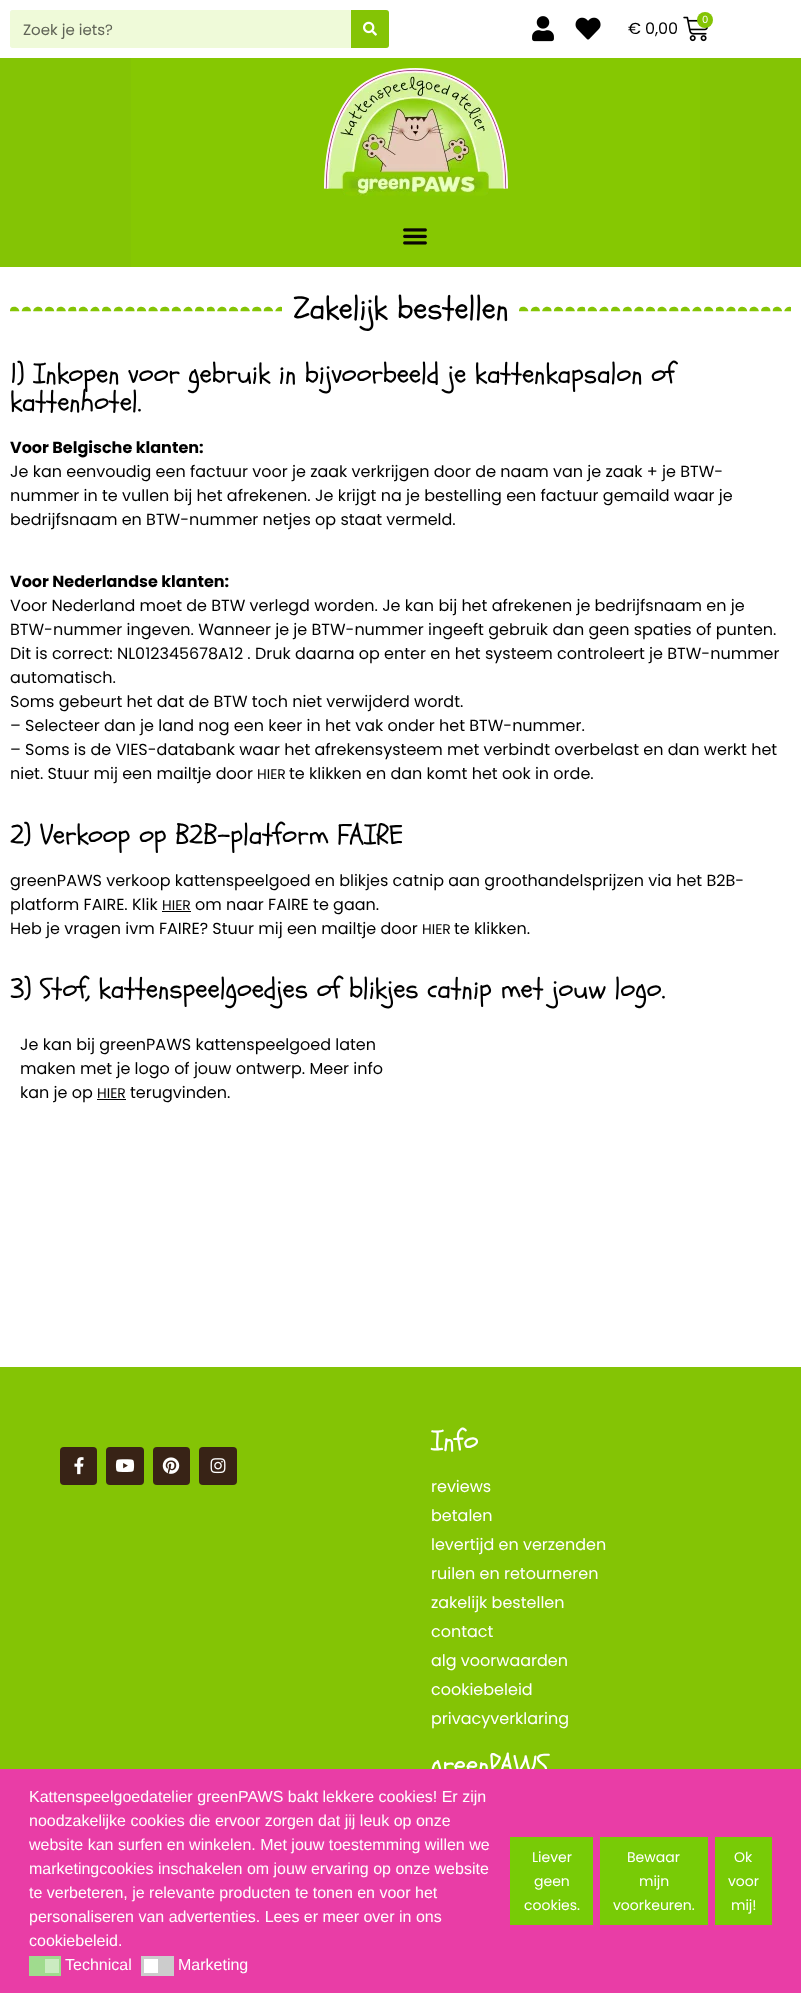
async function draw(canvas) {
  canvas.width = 801;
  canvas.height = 1993;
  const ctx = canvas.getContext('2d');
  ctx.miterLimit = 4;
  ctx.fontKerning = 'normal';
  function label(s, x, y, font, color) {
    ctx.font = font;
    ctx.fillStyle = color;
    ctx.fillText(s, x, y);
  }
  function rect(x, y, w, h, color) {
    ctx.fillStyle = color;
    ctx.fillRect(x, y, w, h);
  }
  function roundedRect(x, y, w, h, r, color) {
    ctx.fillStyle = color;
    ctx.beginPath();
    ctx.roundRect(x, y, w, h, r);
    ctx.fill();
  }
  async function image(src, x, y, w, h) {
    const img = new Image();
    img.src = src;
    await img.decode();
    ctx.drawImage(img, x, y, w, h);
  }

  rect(0, 0, 801, 1993, '#fff');
  roundedRect(10, 10, 379, 38, 3, '#f1f2f3');
  ctx.fillStyle = '#effad9';
  ctx.beginPath();
  ctx.roundRect(10, 10, 341, 38, [3, 2, 2, 3]);
  ctx.fill();
  label('Zoek je iets?', 23, 35, '15px Poppins', '#606457');
  ctx.fillStyle = '#84c405';
  ctx.beginPath();
  ctx.roundRect(351, 10, 38, 38, [0, 3, 3, 0]);
  ctx.fill();
  await image('assets/img1.png', 363, 21, 14, 15);
  await image('assets/img2.png', 532, 16, 22, 26);
  await image('assets/img3.png', 575, 17, 26, 23);
  await image('assets/img4.png', 683, 16, 26, 26);
  ctx.beginPath();
  ctx.arc(705, 20, 8, 0, 2 * Math.PI);
  ctx.fill();
  ctx.letterSpacing = '-0.1px';
  label('0', 702, 23, '10px Poppins', '#fff');
  label('€ 0,00', 628, 34, '16px Poppins', '#000');
  rect(0, 58, 801, 209, '#84c405');
  rect(131, 58, 569, 209, '#86c802');
  await image('assets/img5.png', 324, 68, 184, 128);
  await image('assets/img6.png', 403, 228, 24, 17);
  await image('assets/img7.png', 10, 306, 272, 6);
  label('Zakelijk bestellen', 293, 319, '32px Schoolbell', '#000');
  await image('assets/img7.png', 519, 306, 272, 6);
  label('1) Inkopen voor gebruik in bijvoorbeeld je kattenkapsalon of', 10, 383, '28px Schoolbell', '#000');
  label('kattenhotel.', 10, 411, '28px Schoolbell', '#000');
  ctx.letterSpacing = '0px';
  label('Voor Belgische klanten:', 10, 453, 'bold 16px Poppins', '#000');
  label('Je kan eenvoudig een factuur voor je zaak verkrijgen door de naam van je zaak + je BTW-', 10, 477, '16px Poppins', '#000');
  label('nummer in te vullen bij het afrekenen. Je krijgt na je bestelling een factuur gemaild waar je', 10, 501, '16px Poppins', '#000');
  label('bedrijfsnaam en BTW-nummer netjes op staat vermeld.', 10, 525, '16px Poppins', '#000');
  label('Voor Nederlandse klanten:', 10, 587, 'bold 16px Poppins', '#000');
  label('Voor Nederland moet de BTW verlegd worden. Je kan bij het afrekenen je bedrijfsnaam en je', 10, 611, '16px Poppins', '#000');
  label('BTW-nummer ingeven. Wanneer je je BTW-nummer ingeeft gebruik dan geen spaties of punten.', 10, 635, '16px Poppins', '#000');
  label('Dit is correct: NL012345678A12 . Druk daarna op enter en het systeem controleert je BTW-nummer', 10, 659, '16px Poppins', '#000');
  label('automatisch.', 10, 683, '16px Poppins', '#000');
  label('Soms gebeurt het dat de BTW toch niet verwijderd wordt.', 10, 707, '16px Poppins', '#000');
  label('– Selecteer dan je land nog een keer in het vak onder het BTW-nummer.', 10, 731, '16px Poppins', '#000');
  label('– Soms is de VIES-databank waar het afrekensysteem met verbindt overbelast en dan werkt het', 10, 755, '16px Poppins', '#000');
  label('niet. Stuur mij een mailtje door', 10, 779, '16px Poppins', '#000');
  label('HIER', 257, 779, '14px Poppins', '#000');
  label('te klikken en dan komt het ook in orde.', 289, 779, '16px Poppins', '#000');
  ctx.letterSpacing = '-0.1px';
  label('2) Verkoop op B2B-platform FAIRE', 10, 844, '28px Schoolbell', '#000');
  ctx.letterSpacing = '0px';
  label('greenPAWS verkoop kattenspeelgoed en blikjes catnip aan groothandelsprijzen via het B2B-', 10, 886, '16px Poppins', '#000');
  label('platform FAIRE. Klik', 10, 910, '16px Poppins', '#000');
  label('HIER', 162, 910, '14px Poppins', '#000');
  rect(162, 911, 29, 1, '#000');
  label('om naar FAIRE te gaan.', 195, 910, '16px Poppins', '#000');
  label('Heb je vragen ivm FAIRE? Stuur mij een mailtje door', 10, 934, '16px Poppins', '#000');
  label('HIER', 422, 934, '14px Poppins', '#000');
  label('te klikken.', 454, 934, '16px Poppins', '#000');
  ctx.letterSpacing = '-0.1px';
  label('3) Stof, kattenspeelgoedjes of blikjes catnip met jouw logo.', 10, 998, '28px Schoolbell', '#000');
  ctx.letterSpacing = '0px';
  label('Je kan bij greenPAWS kattenspeelgoed laten', 20, 1050, '16px Poppins', '#000');
  label('maken met je logo of jouw ontwerp. Meer info', 20, 1074, '16px Poppins', '#000');
  label('kan je op', 20, 1098, '16px Poppins', '#000');
  label('HIER', 97, 1098, '14px Poppins', '#000');
  rect(97, 1099, 29, 1, '#000');
  label('terugvinden.', 130, 1098, '16px Poppins', '#000');
  rect(0, 1367, 801, 402, '#84c405');
  roundedRect(60, 1447, 37, 38, 4, '#382316');
  await image('assets/img8.png', 74, 1457, 10, 18);
  roundedRect(106, 1447, 38, 38, 4, '#382316');
  await image('assets/img9.png', 115, 1459, 20, 13);
  roundedRect(153, 1447, 37, 38, 4, '#382316');
  await image('assets/img10.png', 162, 1457, 18, 17);
  roundedRect(199, 1447, 38, 38, 4, '#382316');
  await image('assets/img11.png', 210, 1458, 16, 16);
  ctx.letterSpacing = '-0.1px';
  label('Info', 431, 1450, '28px Schoolbell', '#fff');
  ctx.letterSpacing = '0px';
  label('reviews', 431, 1492, '16px Poppins', '#fff');
  label('betalen', 431, 1521, '16px Poppins', '#fff');
  label('levertijd en verzenden', 431, 1550, '16px Poppins', '#fff');
  label('ruilen en retourneren', 431, 1579, '16px Poppins', '#fff');
  label('zakelijk bestellen', 431, 1608, '16px Poppins', '#fff');
  label('contact', 431, 1637, '16px Poppins', '#fff');
  label('alg voorwaarden', 431, 1666, '16px Poppins', '#fff');
  label('cookiebeleid', 431, 1695, '16px Poppins', '#fff');
  label('privacyverklaring', 431, 1724, '16px Poppins', '#fff');
  ctx.letterSpacing = '-0.1px';
  label('greenPAWS', 431, 1774, '28px Schoolbell', '#fff');
  rect(0, 1769, 801, 224, '#e93da6');
  ctx.letterSpacing = '0px';
  label('Kattenspeelgoedatelier greenPAWS bakt lekkere cookies! Er zijn', 29, 1802, '16px Liberation Sans', '#fff');
  label('noodzakelijke cookies die ervoor zorgen dat jij leuk op onze', 29, 1826, '16px Liberation Sans', '#fff');
  label('website kan surfen en winkelen. Met jouw toestemming willen we', 29, 1850, '16px Liberation Sans', '#fff');
  label('marketingcookies inschakelen om jouw ervaring op onze website', 29, 1874, '16px Liberation Sans', '#fff');
  label('te verbeteren, je relevante producten te tonen en voor het', 29, 1898, '16px Liberation Sans', '#fff');
  label('personaliseren van advertenties. Lees er meer over in ons', 29, 1922, '16px Liberation Sans', '#fff');
  label('cookiebeleid.', 29, 1946, '16px Liberation Sans', '#fff');
  rect(29, 1956, 32, 20, '#a0db8e');
  rect(45, 1959, 14, 14, '#cbebc1');
  label('Technical', 65, 1970, '16px Liberation Sans', '#fff');
  rect(141, 1956, 33, 20, '#ccc');
  rect(144, 1959, 14, 14, '#fff');
  label('Marketing', 178, 1970, '16px Liberation Sans', '#fff');
  rect(510, 1837, 83, 88, '#78cb06');
  label('Liever', 532, 1862, '14px Poppins', '#fff');
  label('geen', 534, 1886, '14px Poppins', '#fff');
  label('cookies.', 524, 1910, '14px Poppins', '#fff');
  rect(600, 1837, 108, 88, '#78cb06');
  label('Bewaar', 627, 1862, '14px Poppins', '#fff');
  label('mijn', 639, 1886, '14px Poppins', '#fff');
  label('voorkeuren.', 613, 1910, '14px Poppins', '#fff');
  rect(715, 1837, 57, 88, '#78cb06');
  label('Ok', 734, 1862, '14px Poppins', '#fff');
  label('voor', 728, 1886, '14px Poppins', '#fff');
  label('mij!', 731, 1910, '14px Poppins', '#fff');
}

draw(document.querySelector('canvas'));
